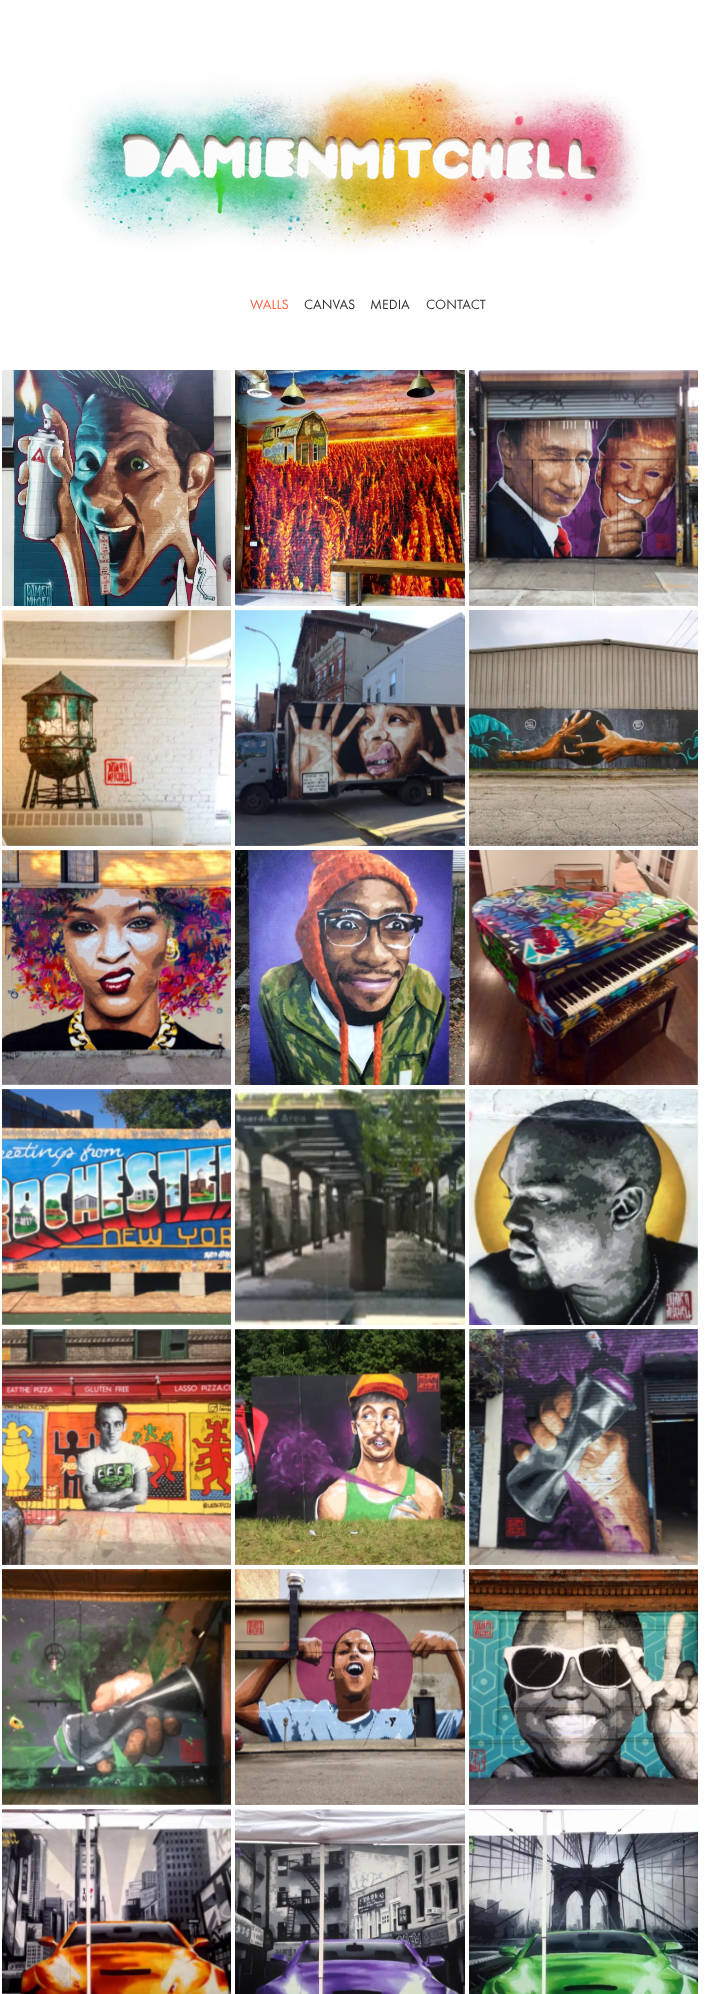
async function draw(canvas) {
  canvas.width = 707;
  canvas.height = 1994;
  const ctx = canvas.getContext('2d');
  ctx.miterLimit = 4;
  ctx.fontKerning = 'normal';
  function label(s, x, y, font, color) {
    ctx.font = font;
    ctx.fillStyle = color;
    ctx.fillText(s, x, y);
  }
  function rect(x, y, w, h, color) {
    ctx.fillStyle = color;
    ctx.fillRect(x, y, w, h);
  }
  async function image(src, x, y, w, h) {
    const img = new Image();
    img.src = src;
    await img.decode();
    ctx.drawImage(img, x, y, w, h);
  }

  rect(0, 0, 707, 1994, '#fff');
  await image('assets/img1.png', 63, 71, 584, 183);
  label('WALLS', 250, 309, '14px Futura PT', '#ff6347');
  label('CANVAS', 304, 309, '14px Futura PT', '#333');
  label('MEDIA', 370, 309, '14px Futura PT', '#333');
  label('CONTACT', 426, 309, '14px Futura PT', '#333');
  await image('assets/img2.png', 2, 370, 229, 236);
  await image('assets/img3.png', 235, 370, 230, 236);
  await image('assets/img4.png', 466, 370, 232, 236);
  ctx.strokeStyle = '#fff';
  ctx.lineWidth = 2;
  ctx.strokeRect(468, 369, 231, 238);
  await image('assets/img5.png', 2, 610, 229, 236);
  await image('assets/img6.png', 235, 610, 230, 236);
  await image('assets/img7.png', 466, 610, 232, 236);
  ctx.strokeRect(468, 609, 231, 238);
  await image('assets/img8.png', 2, 850, 229, 235);
  await image('assets/img9.png', 235, 850, 230, 235);
  await image('assets/img10.png', 469, 850, 229, 235);
  await image('assets/img11.png', 2, 1089, 229, 236);
  rect(235, 1089, 230, 236, '#eee');
  await image('assets/img12.png', 235, 1089, 230, 236);
  await image('assets/img13.png', 469, 1089, 229, 236);
  await image('assets/img14.png', 2, 1329, 229, 236);
  await image('assets/img15.png', 235, 1329, 230, 236);
  await image('assets/img16.png', 469, 1329, 229, 236);
  await image('assets/img17.png', 2, 1569, 229, 236);
  await image('assets/img18.png', 235, 1569, 230, 236);
  await image('assets/img19.png', 466, 1569, 232, 236);
  ctx.strokeRect(468, 1568, 231, 238);
  await image('assets/img20.png', 2, 1809, 229, 185);
  await image('assets/img21.png', 235, 1809, 230, 185);
  await image('assets/img22.png', 469, 1809, 229, 185);
}

draw(document.querySelector('canvas'));
